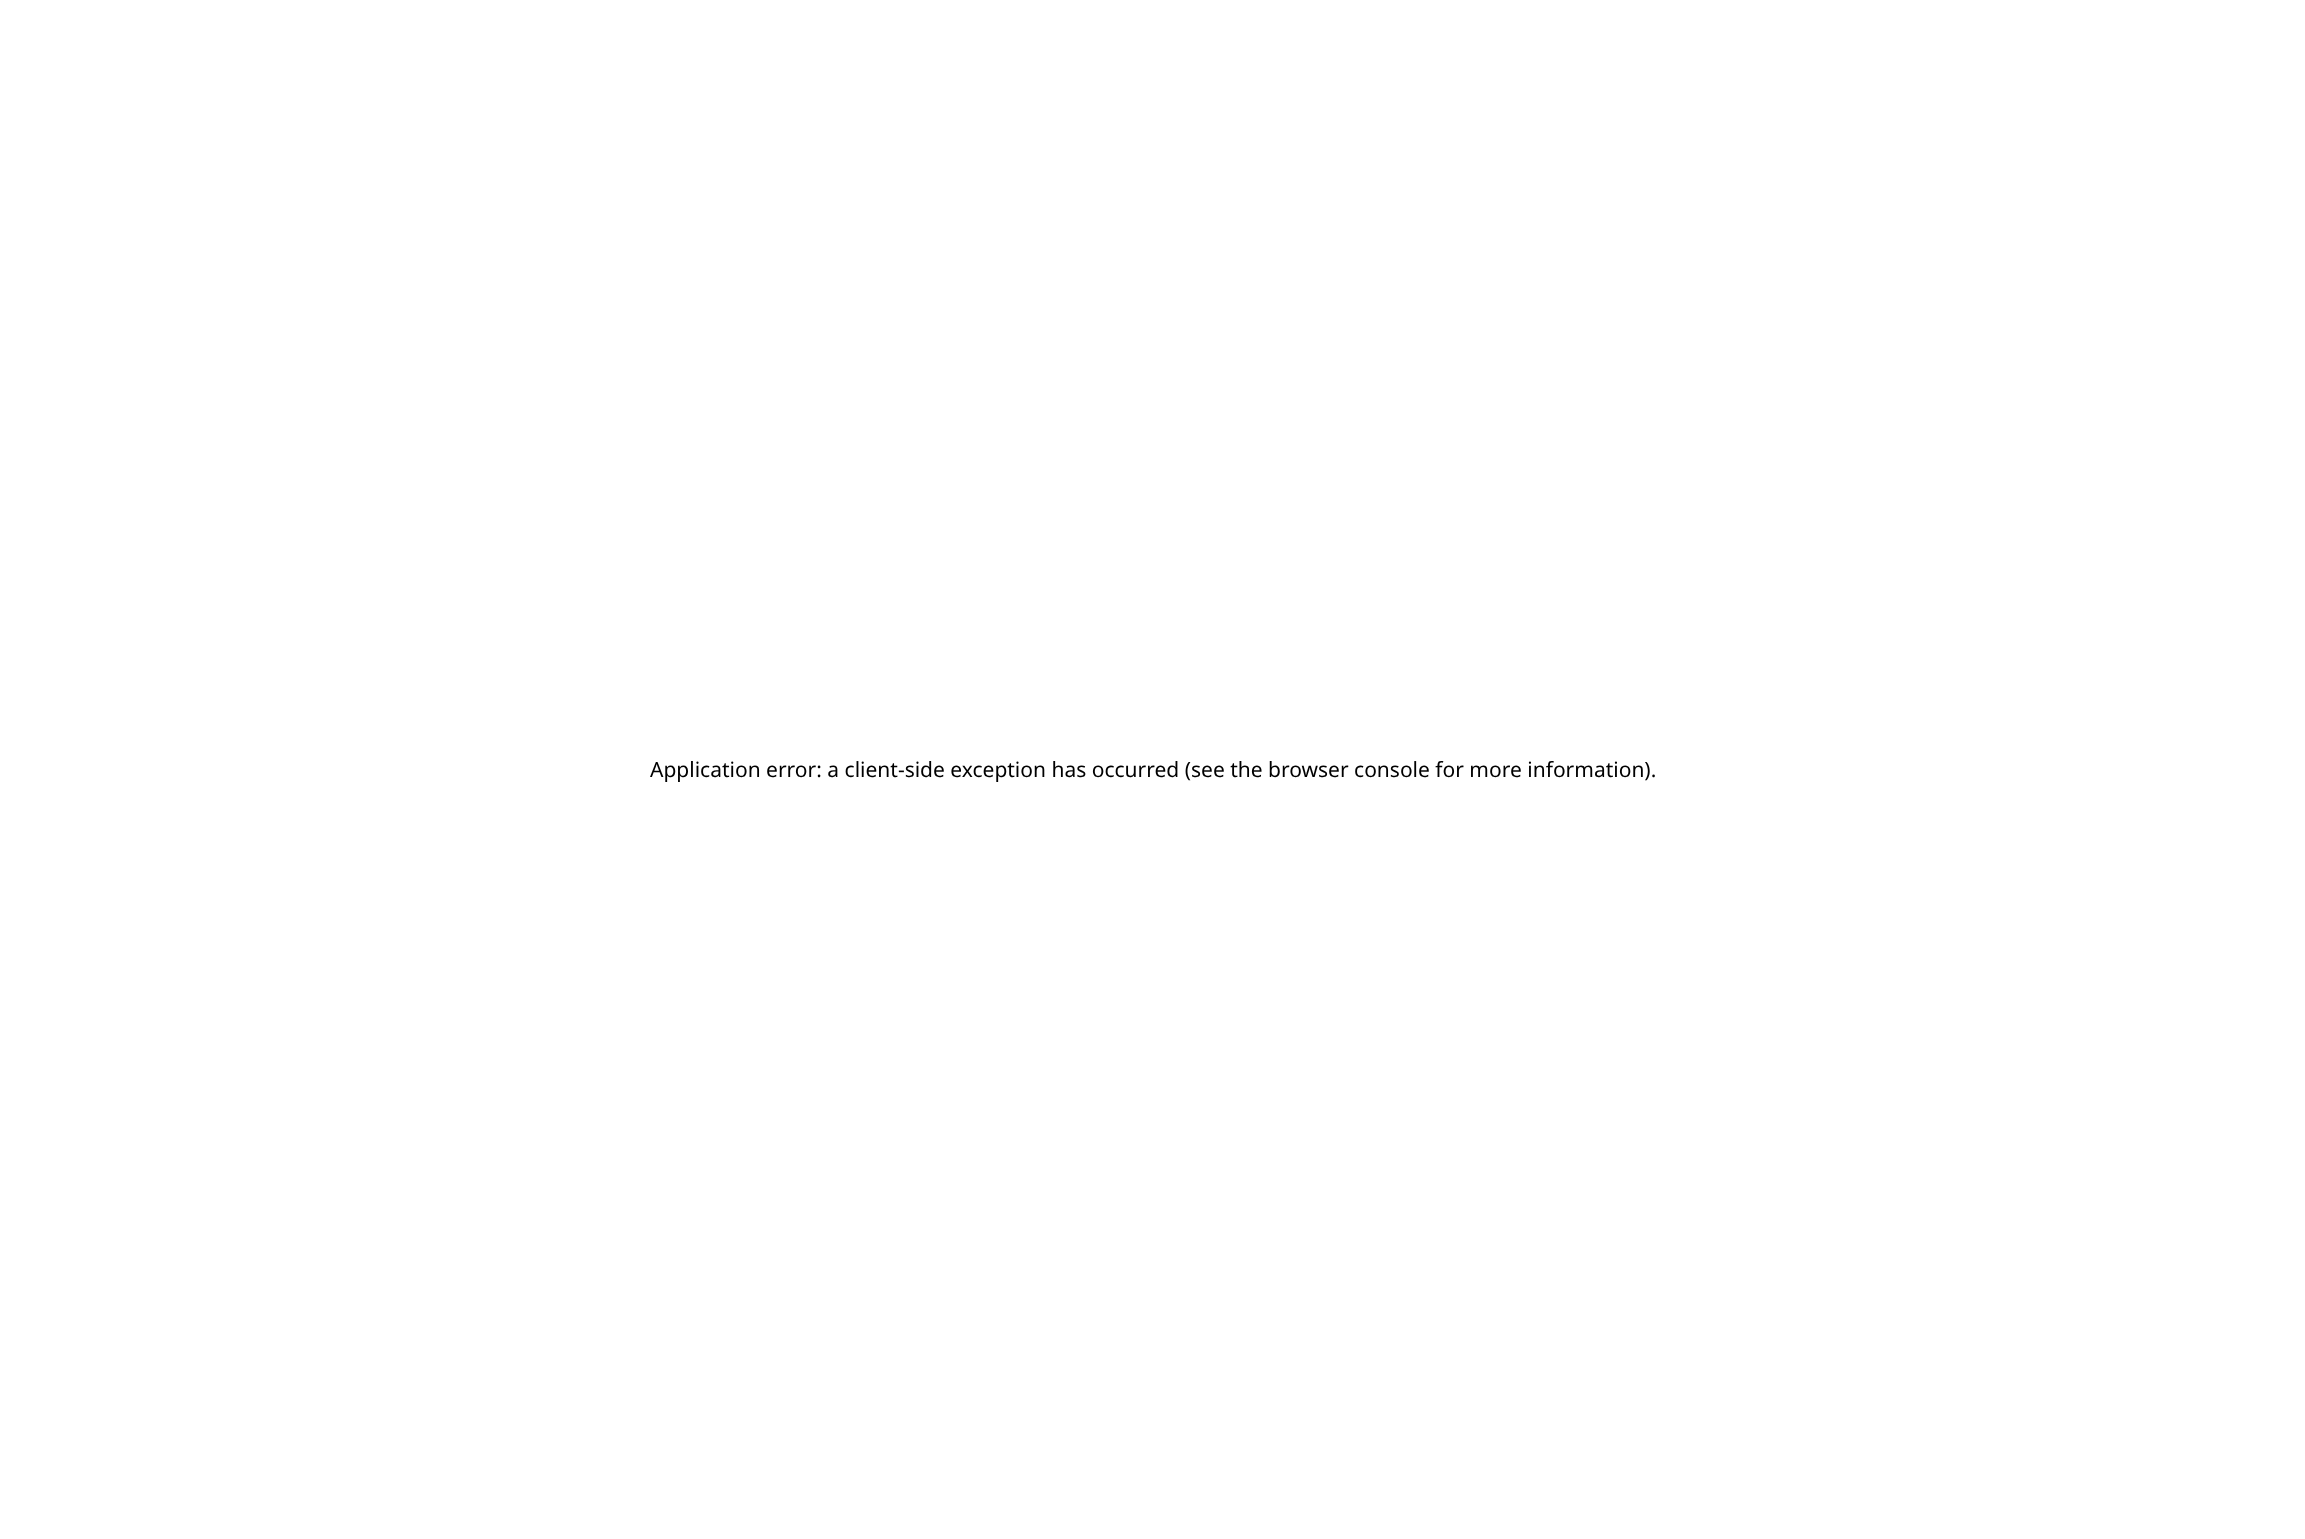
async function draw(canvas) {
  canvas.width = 2305;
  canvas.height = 1539;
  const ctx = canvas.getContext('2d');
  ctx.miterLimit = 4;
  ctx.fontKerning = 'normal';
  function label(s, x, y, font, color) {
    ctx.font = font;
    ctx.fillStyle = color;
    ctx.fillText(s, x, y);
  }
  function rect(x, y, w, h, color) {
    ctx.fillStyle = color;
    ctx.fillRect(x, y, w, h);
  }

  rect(0, 0, 2305, 1539, '#fff');
  label('Application error: a client-side exception has occurred (see the browser console for more information).', 650, 777, '21px Noto Sans', '#000');
}

draw(document.querySelector('canvas'));
